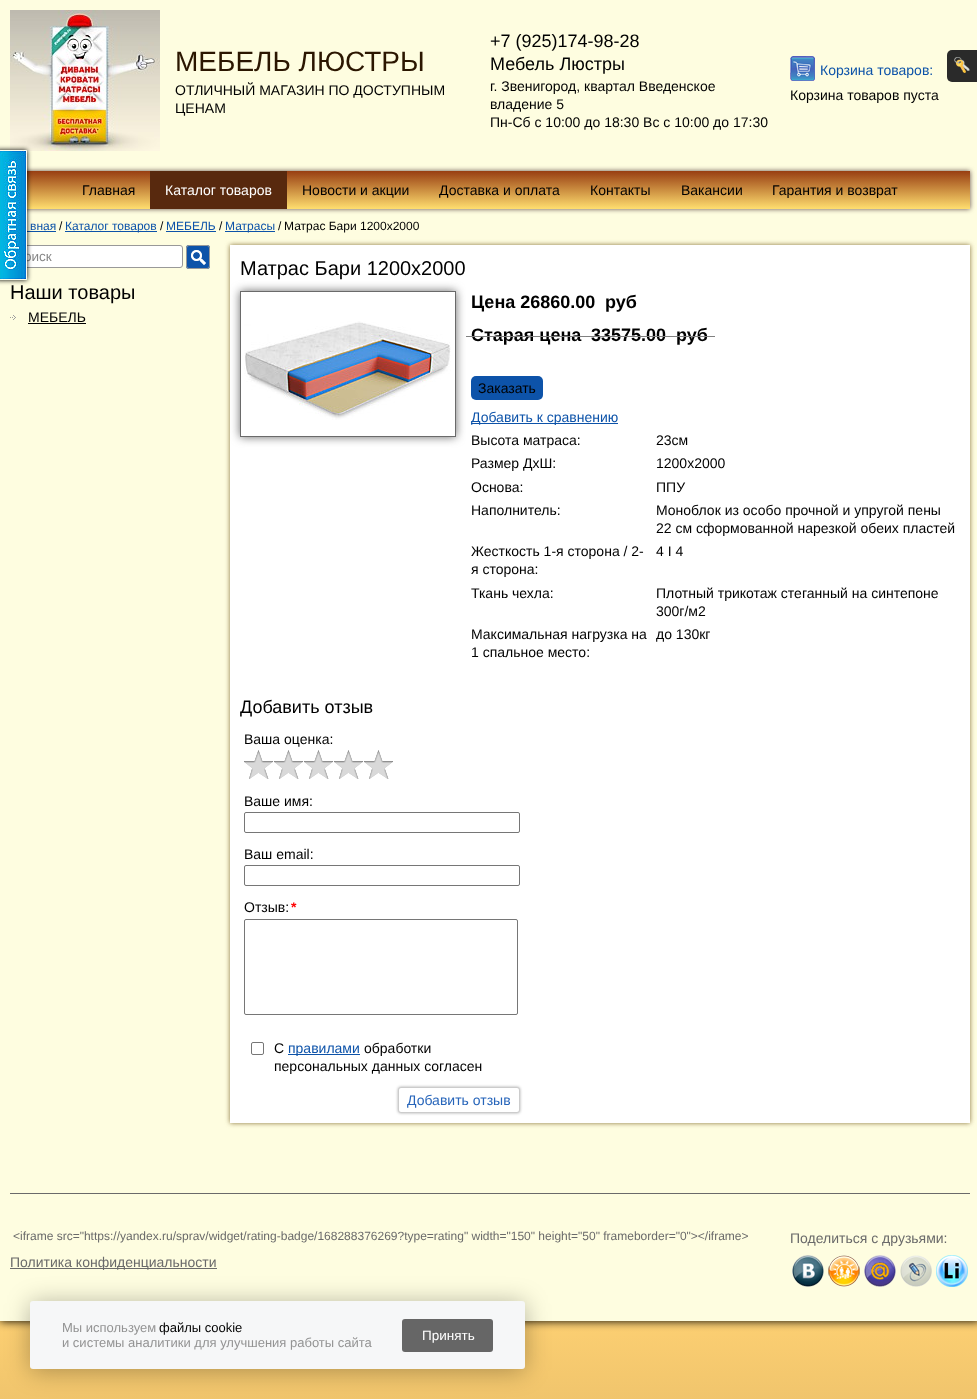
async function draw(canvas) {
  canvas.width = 977;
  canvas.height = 1399;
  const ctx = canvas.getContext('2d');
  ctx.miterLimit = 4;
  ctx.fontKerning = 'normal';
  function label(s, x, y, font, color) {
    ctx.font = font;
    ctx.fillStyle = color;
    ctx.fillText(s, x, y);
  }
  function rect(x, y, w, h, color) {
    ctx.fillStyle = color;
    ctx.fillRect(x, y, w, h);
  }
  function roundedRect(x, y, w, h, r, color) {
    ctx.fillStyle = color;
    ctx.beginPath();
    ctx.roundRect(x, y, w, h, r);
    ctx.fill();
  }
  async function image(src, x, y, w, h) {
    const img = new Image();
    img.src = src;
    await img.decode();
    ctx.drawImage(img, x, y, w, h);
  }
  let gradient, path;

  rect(0, 0, 977, 1399, '#fff');
  gradient = ctx.createLinearGradient(488, 1321, 489, 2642);
  gradient.addColorStop(0, '#fccf72');
  gradient.addColorStop(1, '#372111');
  ctx.fillStyle = gradient;
  ctx.fillRect(0, 1321, 977, 78);
  ctx.fillStyle = '#000';
  ctx.filter = 'blur(5px)';
  ctx.beginPath();
  ctx.rect(0, 0, 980, 1321);
  ctx.fill();
  ctx.filter = 'none';
  rect(0, 0, 977, 1321, '#fefde0');
  await image('assets/img1.png', 10, 10, 150, 141);
  label('МЕБЕЛЬ ЛЮСТРЫ', 175, 71, '28px Liberation Sans', '#2b1600');
  label('ОТЛИЧНЫЙ МАГАЗИН ПО ДОСТУПНЫМ', 175, 95, '14px Liberation Sans', '#000');
  label('ЦЕНАМ', 175, 113, '14px Liberation Sans', '#000');
  label('+7 (925)174-98-28', 490, 47, '18px Liberation Sans', '#000');
  label('Мебель Люстры', 490, 70, '18px Liberation Sans', '#000');
  label('г. Звенигород, квартал Введенское', 490, 91, '14px Liberation Sans', '#000');
  label('владение 5', 490, 109, '14px Liberation Sans', '#000');
  label('Пн-Сб с 10:00 до 18:30 Вс с 10:00 до 17:30', 490, 127, '14px Liberation Sans', '#000');
  await image('assets/img2.png', 790, 56, 25, 25);
  label('Корзина товаров:', 820, 75, '14px Liberation Sans', '#0d53a9');
  label('Корзина товаров пуста', 790, 100, '14px Liberation Sans', '#000');
  ctx.fillStyle = '#604b48';
  ctx.filter = 'blur(2.5px)';
  ctx.beginPath();
  ctx.rect(10, 171, 960, 38);
  ctx.fill();
  ctx.filter = 'none';
  gradient = ctx.createLinearGradient(490, 171, 490, 209);
  gradient.addColorStop(0, '#983e12');
  gradient.addColorStop(1, '#ffde6f');
  ctx.fillStyle = gradient;
  ctx.fillRect(27, 171, 943, 38);
  label('Главная', 82, 195, '14px Liberation Sans', '#000');
  rect(150, 171, 137, 38, '#58290e');
  label('Каталог товаров', 165, 195, '14px Liberation Sans', '#fff');
  label('Новости и акции', 302, 195, '14px Liberation Sans', '#000');
  label('Доставка и оплата', 439, 195, '14px Liberation Sans', '#000');
  label('Контакты', 590, 195, '14px Liberation Sans', '#000');
  label('Вакансии', 681, 195, '14px Liberation Sans', '#000');
  label('Гарантия и возврат', 772, 195, '14px Liberation Sans', '#000');
  label('вная', 30, 230, '12px Liberation Sans', '#0d53a9');
  rect(27, 231, 29, 1, '#0d53a9');
  label('/', 59, 230, '12px Liberation Sans', '#000');
  rect(65, 231, 92, 1, '#0d53a9');
  label('Каталог товаров', 65, 230, '12px Liberation Sans', '#0d53a9');
  label('/', 160, 230, '12px Liberation Sans', '#000');
  label('МЕБЕЛЬ', 166, 230, '12px Liberation Sans', '#0d53a9');
  rect(166, 231, 50, 1, '#0d53a9');
  label('/', 219, 230, '12px Liberation Sans', '#000');
  rect(225, 231, 50, 1, '#0d53a9');
  label('Матрасы', 225, 230, '12px Liberation Sans', '#0d53a9');
  label('/', 278, 230, '12px Liberation Sans', '#000');
  label('Матрас Бари 1200х2000', 284, 230, '12px Liberation Sans', '#000');
  ctx.fillStyle = '#fff';
  ctx.beginPath();
  ctx.roundRect(10.5, 245.5, 172, 22, 2.5);
  ctx.fill();
  ctx.strokeStyle = '#999';
  ctx.stroke();
  label('оиск', 24, 261, '13.5px Liberation Sans', '#888');
  roundedRect(186, 245, 24, 24, 3, '#0d53a9');
  await image('assets/img3.png', 191, 250, 15, 15);
  ctx.beginPath();
  ctx.roundRect(186.5, 245.5, 23, 23, 2.5);
  ctx.stroke();
  label('Наши товары', 10, 299, '20px Liberation Sans', '#000');
  await image('assets/img4.png', 10, 315, 6, 5);
  label('МЕБЕЛЬ', 28, 322, '14px Liberation Sans', '#000');
  rect(28, 323, 58, 1, '#000');
  ctx.fillStyle = '#87723a';
  ctx.filter = 'blur(2.5px)';
  ctx.beginPath();
  ctx.rect(230, 245, 740, 878);
  ctx.fill();
  ctx.filter = 'none';
  rect(230, 245, 740, 878, '#fff');
  label('Матрас Бари 1200х2000', 240, 275, '20px Liberation Sans', '#000');
  roundedRect(471, 376, 72, 24, 5, '#0d53a9');
  rect(471, 423, 147, 1, '#0d53a9');
  ctx.save();
  path = new Path2D('M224 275H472V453H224ZM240 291H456V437H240Z');
  ctx.clip(path, 'evenodd');
  ctx.fillStyle = '#6a6a6a';
  ctx.filter = 'blur(5px)';
  ctx.beginPath();
  ctx.rect(240, 291, 216, 146);
  ctx.fill();
  ctx.filter = 'none';
  ctx.restore();
  ctx.strokeStyle = '#6a6a6a';
  ctx.strokeRect(240.5, 291.5, 215, 145);
  await image('assets/img5.png', 244, 321, 207, 99);
  label('Цена 26860.00', 471, 308, 'bold 18px Liberation Sans', '#000');
  label('руб', 605, 308, 'bold 18px Liberation Sans', '#000');
  label('Старая цена', 471, 341, 'bold 18px Liberation Sans', '#000');
  label('33575.00', 591, 341, 'bold 18px Liberation Sans', '#000');
  label('руб', 676, 341, 'bold 18px Liberation Sans', '#000');
  rect(466, 336, 249, 1, '#808080');
  label('Заказать', 478, 393, '14px Liberation Sans', '#000');
  label('Добавить к сравнению', 471, 422, '14px Liberation Sans', '#0d53a9');
  label('Высота матраса:', 471, 445, '14px Liberation Sans', '#000');
  label('23см', 656, 445, '14px Liberation Sans', '#000');
  label('Размер ДхШ:', 471, 468, '14px Liberation Sans', '#000');
  label('1200х2000', 656, 468, '14px Liberation Sans', '#000');
  label('Основа:', 471, 492, '14px Liberation Sans', '#000');
  label('ППУ', 656, 492, '14px Liberation Sans', '#000');
  label('Наполнитель:', 471, 515, '14px Liberation Sans', '#000');
  label('Моноблок из особо прочной и упругой пены', 656, 515, '14px Liberation Sans', '#000');
  label('22 см сформованной нарезкой обеих пластей', 656, 533, '14px Liberation Sans', '#000');
  label('Жесткость 1-я сторона / 2-', 471, 556, '14px Liberation Sans', '#000');
  label('я сторона:', 471, 574, '14px Liberation Sans', '#000');
  label('4 I 4', 656, 556, '14px Liberation Sans', '#000');
  label('Ткань чехла:', 471, 598, '14px Liberation Sans', '#000');
  label('Плотный трикотаж стеганный на синтепоне', 656, 598, '14px Liberation Sans', '#000');
  label('300г/м2', 656, 616, '14px Liberation Sans', '#000');
  label('Максимальная нагрузка на', 471, 639, '14px Liberation Sans', '#000');
  label('1 спальное место:', 471, 657, '14px Liberation Sans', '#000');
  label('до 130кг', 656, 639, '14px Liberation Sans', '#000');
  label('Добавить отзыв', 240, 713, '18px Liberation Sans', '#000');
  label('Ваша оценка:', 244, 744, '14px Liberation Sans', '#000');
  await image('assets/img6.png', 244, 750, 29, 29);
  await image('assets/img6.png', 274, 750, 29, 29);
  await image('assets/img6.png', 304, 750, 29, 29);
  await image('assets/img6.png', 334, 750, 29, 29);
  await image('assets/img6.png', 364, 750, 29, 29);
  label('Ваше имя:', 244, 806, '14px Liberation Sans', '#000');
  ctx.beginPath();
  ctx.roundRect(244.5, 812.5, 275, 20, 1.5);
  ctx.strokeStyle = '#767676';
  ctx.stroke();
  label('Ваш email:', 244, 859, '14px Liberation Sans', '#000');
  ctx.beginPath();
  ctx.roundRect(244.5, 865.5, 275, 20, 1.5);
  ctx.stroke();
  label('Отзыв:', 244, 912, '14px Liberation Sans', '#000');
  label('*', 291, 912, 'bold 14px Liberation Sans', '#f00');
  ctx.beginPath();
  ctx.roundRect(244.5, 919.5, 273, 95, 1.5);
  ctx.stroke();
  ctx.beginPath();
  ctx.roundRect(251.5, 1042.5, 12, 12, 1.5);
  ctx.stroke();
  label('С', 274, 1053, '14px Liberation Sans', '#000');
  rect(288, 1054, 72, 1, '#0d53a9');
  label('правилами', 288, 1053, '14px Liberation Sans', '#0d53a9');
  label('обработки', 364, 1053, '14px Liberation Sans', '#000');
  label('персональных данных согласен', 274, 1071, '14px Liberation Sans', '#000');
  ctx.fillStyle = '#aaa';
  ctx.filter = 'blur(1.5px)';
  ctx.beginPath();
  ctx.roundRect(398, 1087, 122, 26, 3);
  ctx.fill();
  ctx.filter = 'none';
  ctx.fillStyle = '#fff';
  ctx.beginPath();
  ctx.roundRect(398.5, 1087.5, 121, 25, 2.5);
  ctx.fill();
  ctx.strokeStyle = '#ccc';
  ctx.stroke();
  label('Добавить отзыв', 407, 1105, '14px Liberation Sans', '#2765ba');
  rect(10, 1193, 960, 1, '#6a6a6a');
  label('<iframe src="https://yandex.ru/sprav/widget/rating-badge/168288376269?type=rating" width="150" height="50" frameborder="0"><\/iframe>', 13, 1240, '12px Liberation Sans', '#6a6a6a');
  label('Поделиться с друзьями:', 790, 1243, '14px Liberation Sans', '#6a6a6a');
  await image('assets/img7.png', 792, 1255, 32, 32);
  await image('assets/img8.png', 828, 1255, 32, 32);
  await image('assets/img9.png', 864, 1255, 32, 32);
  await image('assets/img10.png', 900, 1255, 32, 32);
  await image('assets/img11.png', 936, 1255, 32, 32);
  rect(10, 1268, 207, 1, '#6a6a6a');
  label('Политика конфиденциальности', 10, 1267, '14px Liberation Sans', '#6a6a6a');
  ctx.fillStyle = '#2a2a2a';
  ctx.beginPath();
  ctx.roundRect(947, 50, 30, 32, [5, 0, 0, 5]);
  ctx.fill();
  await image('assets/img12.png', 954, 57, 16, 16);
  ctx.fillStyle = '#000';
  ctx.filter = 'blur(2.5px)';
  ctx.beginPath();
  ctx.rect(-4, 150, 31, 130);
  ctx.fill();
  ctx.filter = 'none';
  await image('assets/img13.png', 0, 150, 27, 130);
  ctx.fillStyle = '#0000004d';
  ctx.filter = 'blur(12.5px)';
  ctx.beginPath();
  ctx.roundRect(30, 1303, 495, 68, 3);
  ctx.fill();
  ctx.filter = 'none';
  roundedRect(30, 1301, 495, 68, 3, '#f6f7f8');
  label('Мы используем', 62, 1332, '13px Liberation Sans', '#939393');
  label('файлы cookie', 159, 1332, '13px Liberation Sans', '#000');
  label('и системы аналитики для улучшения работы сайта', 62, 1347, '13px Liberation Sans', '#939393');
  roundedRect(402, 1319, 91, 33, 3, '#666');
  label('Принять', 422, 1340, '13.5px Liberation Sans', '#fff');
}

draw(document.querySelector('canvas'));
